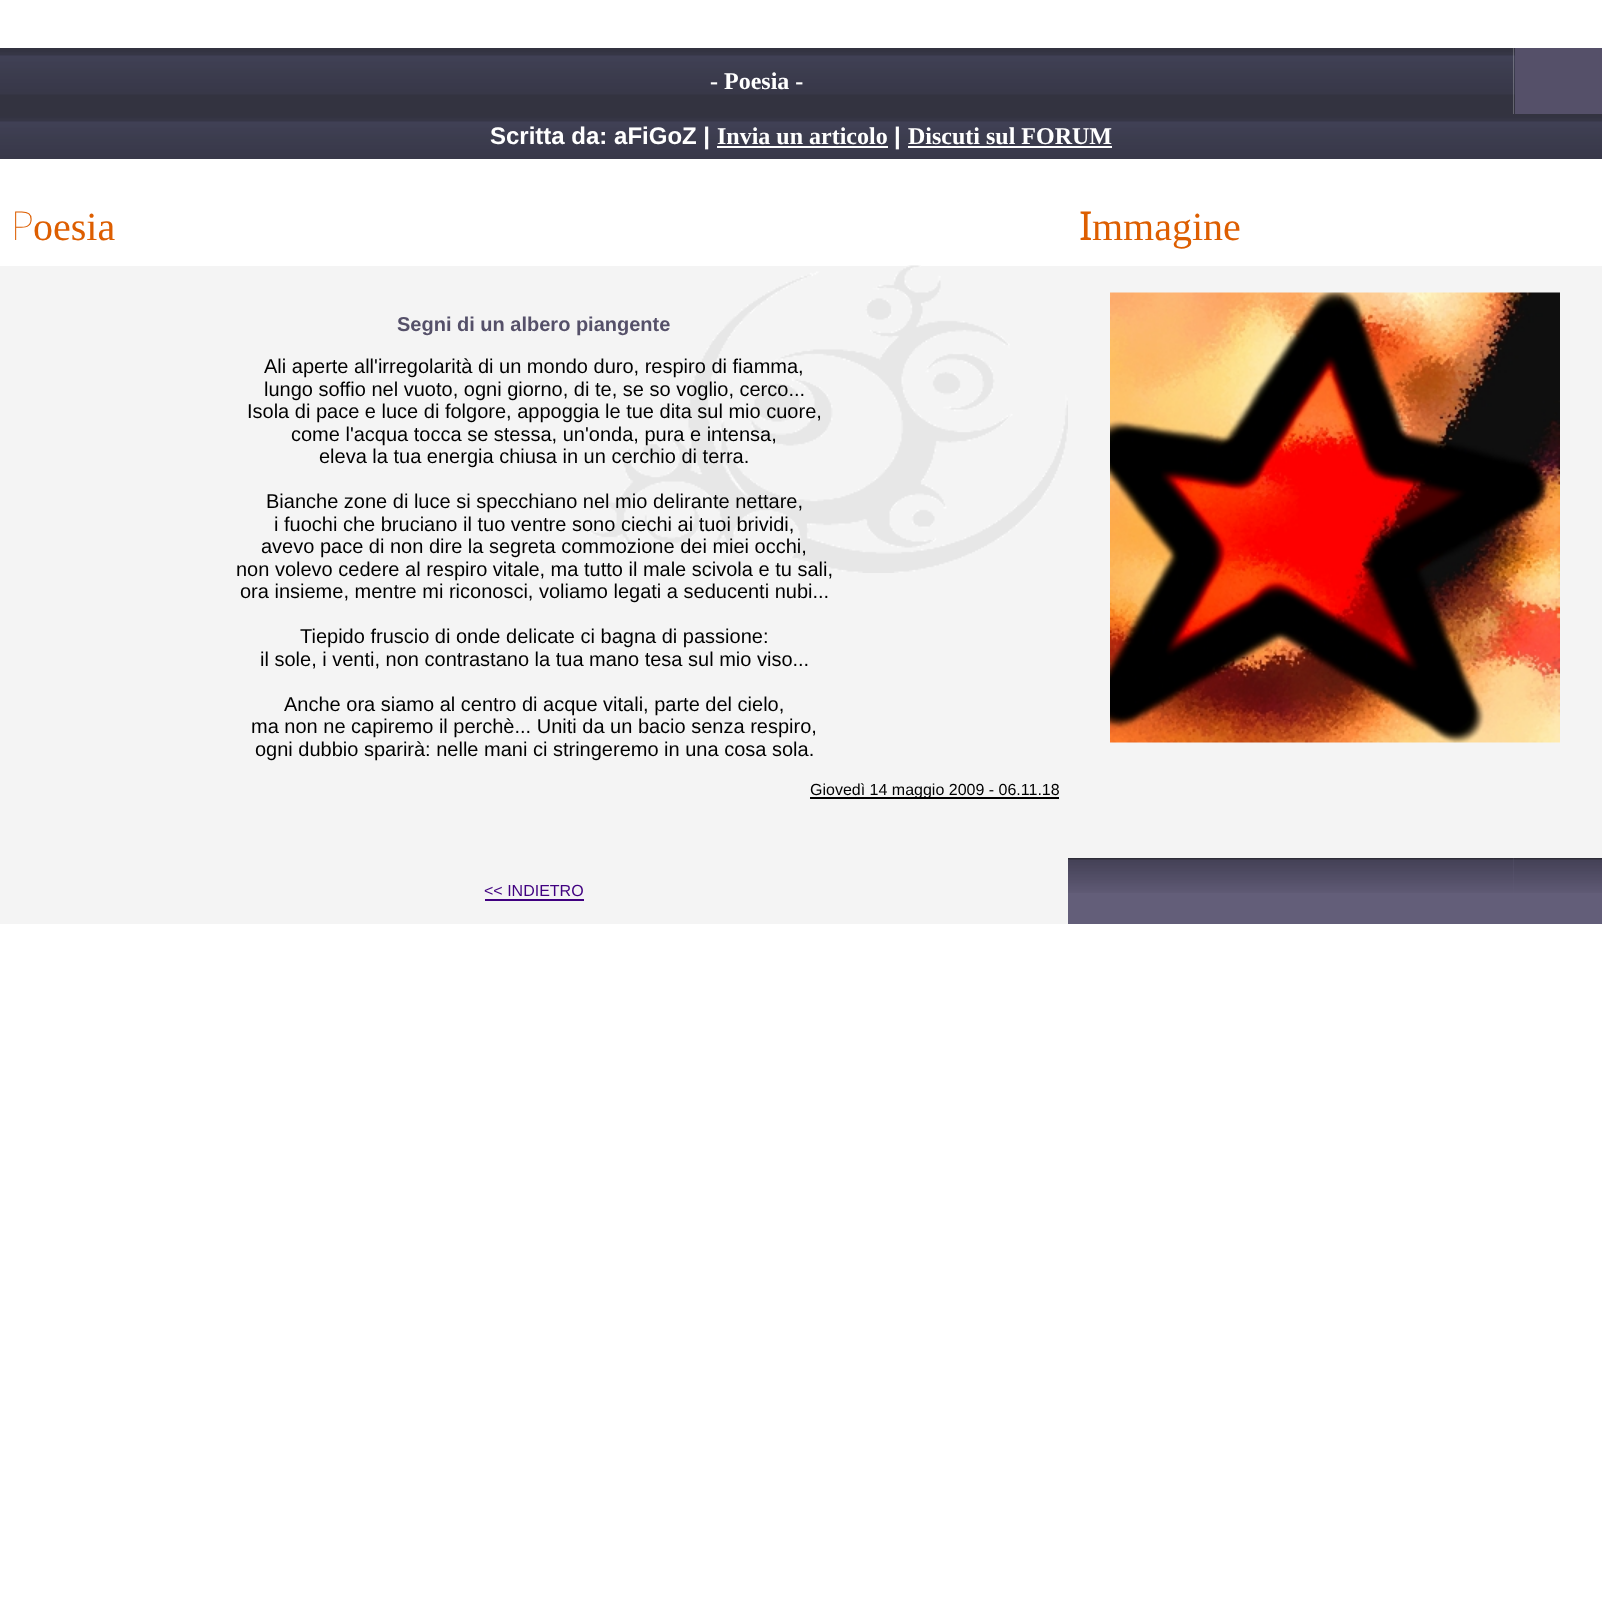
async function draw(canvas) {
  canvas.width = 1602;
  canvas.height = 1624;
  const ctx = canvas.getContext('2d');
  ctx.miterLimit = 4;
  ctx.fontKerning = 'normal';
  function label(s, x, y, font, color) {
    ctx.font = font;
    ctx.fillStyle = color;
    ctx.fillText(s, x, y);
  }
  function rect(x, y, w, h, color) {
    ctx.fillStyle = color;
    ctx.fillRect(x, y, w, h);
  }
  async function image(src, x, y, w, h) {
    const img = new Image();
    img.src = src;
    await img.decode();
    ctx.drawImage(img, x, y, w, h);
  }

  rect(0, 0, 1602, 1624, '#fff');
  await image('assets/img1.png', 0, 48, 1514, 66);
  label('- Poesia -', 710, 89, 'bold 24px Liberation Serif', '#fff');
  rect(1515, 48, 87, 66, '#555069');
  await image('assets/img2.png', 1513, 48, 2, 66);
  await image('assets/img3.png', 0, 114, 1602, 45);
  label('Scritta da: aFiGoZ |', 490, 144, 'bold 24px Liberation Sans', '#fff');
  label('Invia un articolo', 717, 144, 'bold 24px Liberation Serif', '#fff');
  rect(717, 146, 171, 2, '#fff');
  label('|', 894, 144, 'bold 24px Liberation Sans', '#fff');
  label('Discuti sul FORUM', 908, 144, 'bold 24px Liberation Serif', '#fff');
  rect(908, 146, 204, 2, '#fff');
  label('P', 11, 240, '100 40px Noto Sans', '#dd5e00');
  label('oesia', 33, 240, '40px Liberation Serif', '#dd5e00');
  label('I', 1079, 240, '40px Noto Sans', '#dd5e00');
  label('mmagine', 1092, 240, '40px Liberation Serif', '#dd5e00');
  rect(0, 266, 1602, 592, '#f4f4f4');
  await image('assets/img4.png', 589, 265, 479, 308);
  label('Segni di un albero piangente', 397, 331, 'bold 20px Liberation Sans', '#555069');
  label('Ali aperte all\'irregolarità di un mondo duro, respiro di fiamma,', 264, 373, '20px Liberation Sans', '#000');
  label('lungo soffio nel vuoto, ogni giorno, di te, se so voglio, cerco...', 264, 396, '20px Liberation Sans', '#000');
  label('Isola di pace e luce di folgore, appoggia le tue dita sul mio cuore,', 247, 418, '20px Liberation Sans', '#000');
  label('come l\'acqua tocca se stessa, un\'onda, pura e intensa,', 291, 441, '20px Liberation Sans', '#000');
  label('eleva la tua energia chiusa in un cerchio di terra.', 319, 463, '20px Liberation Sans', '#000');
  label('Bianche zone di luce si specchiano nel mio delirante nettare,', 266, 508, '20px Liberation Sans', '#000');
  label('i fuochi che bruciano il tuo ventre sono ciechi ai tuoi brividi,', 274, 531, '20px Liberation Sans', '#000');
  label('avevo pace di non dire la segreta commozione dei miei occhi,', 261, 553, '20px Liberation Sans', '#000');
  label('non volevo cedere al respiro vitale, ma tutto il male scivola e tu sali,', 236, 576, '20px Liberation Sans', '#000');
  label('ora insieme, mentre mi riconosci, voliamo legati a seducenti nubi...', 240, 598, '20px Liberation Sans', '#000');
  label('Tiepido fruscio di onde delicate ci bagna di passione:', 300, 643, '20px Liberation Sans', '#000');
  label('il sole, i venti, non contrastano la tua mano tesa sul mio viso...', 260, 666, '20px Liberation Sans', '#000');
  label('Anche ora siamo al centro di acque vitali, parte del cielo,', 284, 711, '20px Liberation Sans', '#000');
  label('ma non ne capiremo il perchè... Uniti da un bacio senza respiro,', 251, 733, '20px Liberation Sans', '#000');
  label('ogni dubbio sparirà: nelle mani ci stringeremo in una cosa sola.', 255, 756, '20px Liberation Sans', '#000');
  rect(810, 797, 249, 2, '#000');
  label('Giovedì 14 maggio 2009 - 06.11.18', 810, 795, '16px Liberation Sans', '#000');
  await image('assets/img5.png', 1110, 292, 450, 451);
  rect(0, 858, 1068, 66, '#f4f4f4');
  label('<< INDIETRO', 484, 896, '16px Liberation Sans', '#400080');
  rect(485, 899, 99, 2, '#400080');
  rect(1068, 858, 446, 66, '#635e79');
  await image('assets/img6.png', 1068, 858, 446, 35);
  rect(1514, 893, 88, 31, '#635e79');
  await image('assets/img7.png', 1513, 858, 89, 35);
}

draw(document.querySelector('canvas'));
